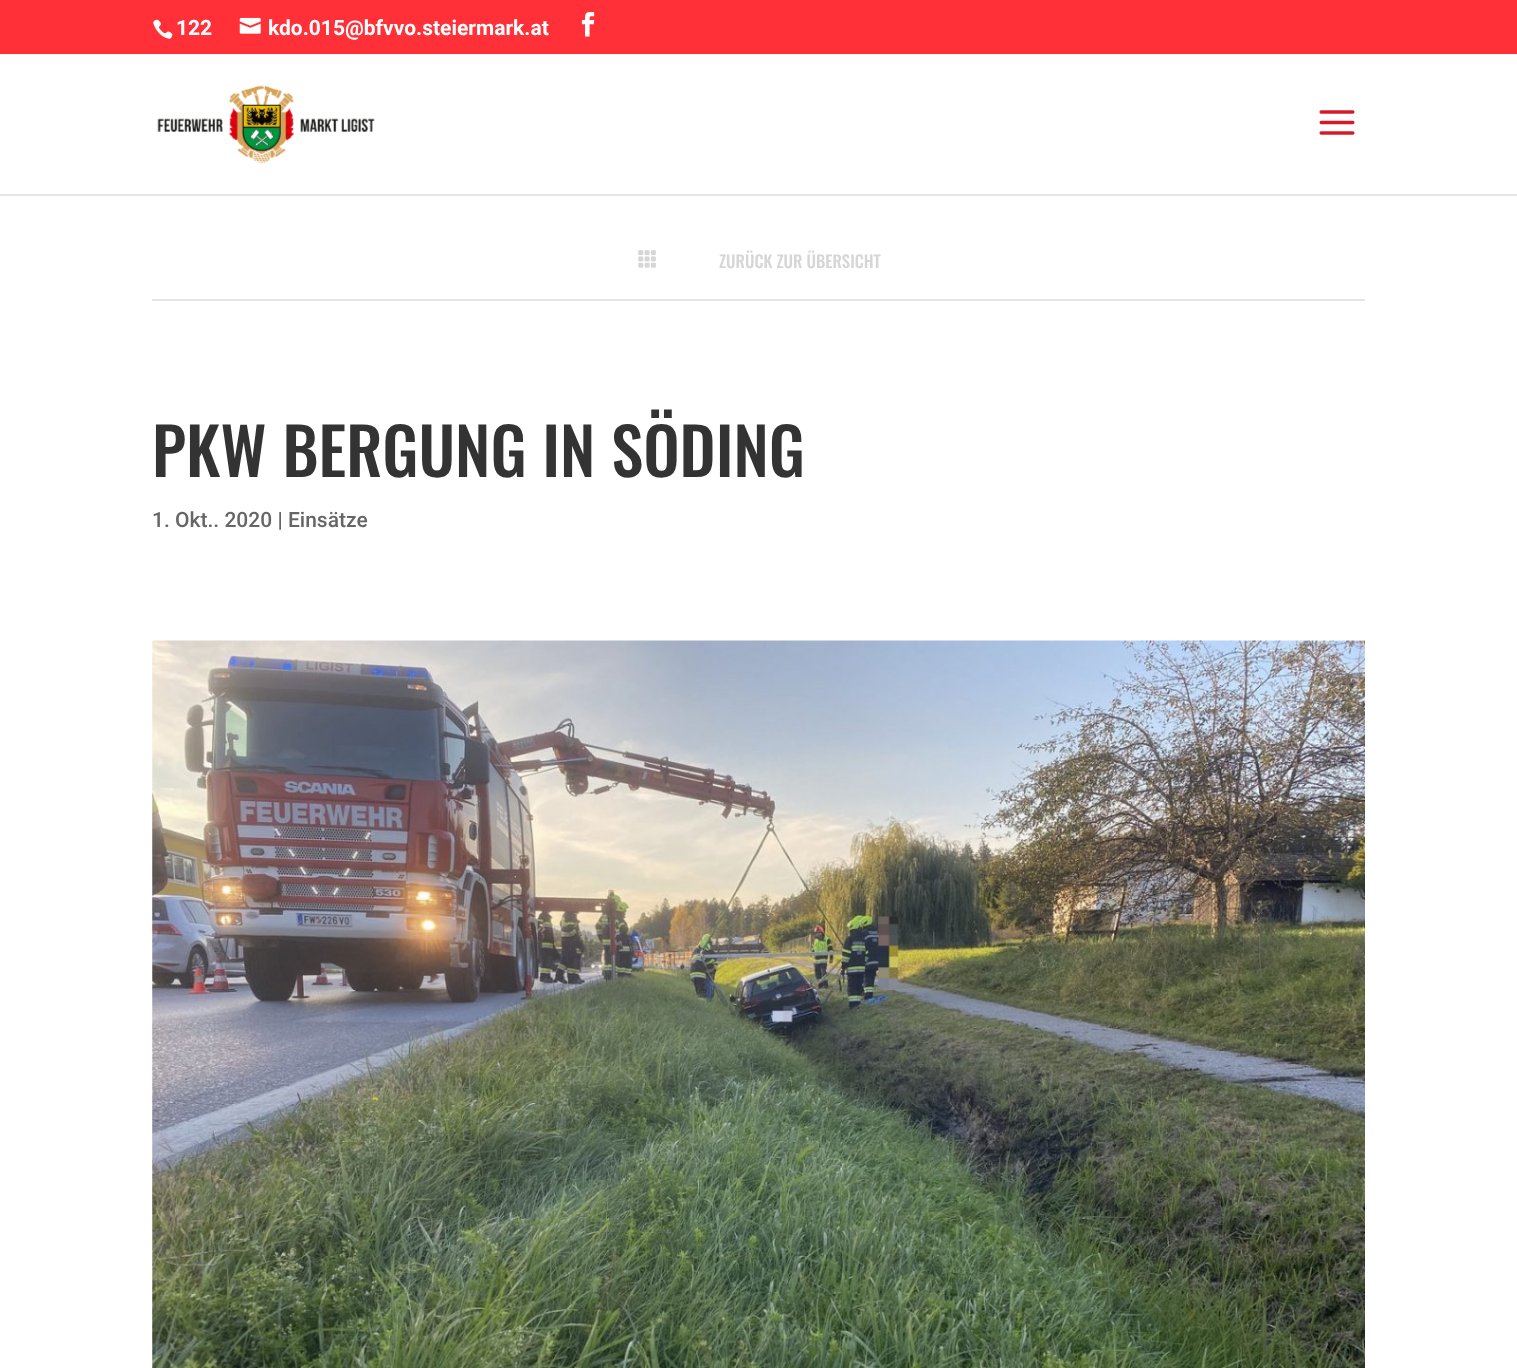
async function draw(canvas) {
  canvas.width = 1517;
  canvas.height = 1368;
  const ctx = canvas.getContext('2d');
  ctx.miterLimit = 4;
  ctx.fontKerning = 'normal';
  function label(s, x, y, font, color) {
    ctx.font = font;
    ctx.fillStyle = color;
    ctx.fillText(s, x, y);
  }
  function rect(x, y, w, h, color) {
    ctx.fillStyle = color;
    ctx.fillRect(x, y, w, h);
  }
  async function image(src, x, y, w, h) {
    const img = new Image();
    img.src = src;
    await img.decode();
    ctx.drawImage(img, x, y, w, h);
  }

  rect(0, 0, 1517, 1368, '#fff');
  rect(0, 0, 1517, 54, '#ff3037');
  await image('assets/img1.png', 153, 19, 20, 20);
  label('122', 176, 35, 'bold 21px Roboto', '#fff');
  await image('assets/img2.png', 239, 17, 22, 17);
  label('kdo.015@bfvvo.steiermark.at', 268, 35, 'bold 21px Roboto', '#fff');
  await image('assets/img3.png', 581, 12, 14, 25);
  rect(0, 194, 1517, 2, '#e6e6e6');
  await image('assets/img4.png', 157, 85, 218, 78);
  await image('assets/img5.png', 1319, 110, 36, 25);
  await image('assets/img6.png', 638, 250, 18, 18);
  label('ZURÜCK ZUR ÜBERSICHT', 719, 268, '500 16.75px Oswald', '#d6d6d6');
  rect(152, 299, 1213, 2, '#e5e5e5');
  label('PKW BERGUNG IN SÖDING', 152, 477, '500 64.75px Oswald', '#333');
  label('1. Okt.. 2020 | Einsätze', 152, 527, '500 21px Roboto', '#666');
  await image('assets/img7.png', 152, 640, 1213, 728);
}

draw(document.querySelector('canvas'));
